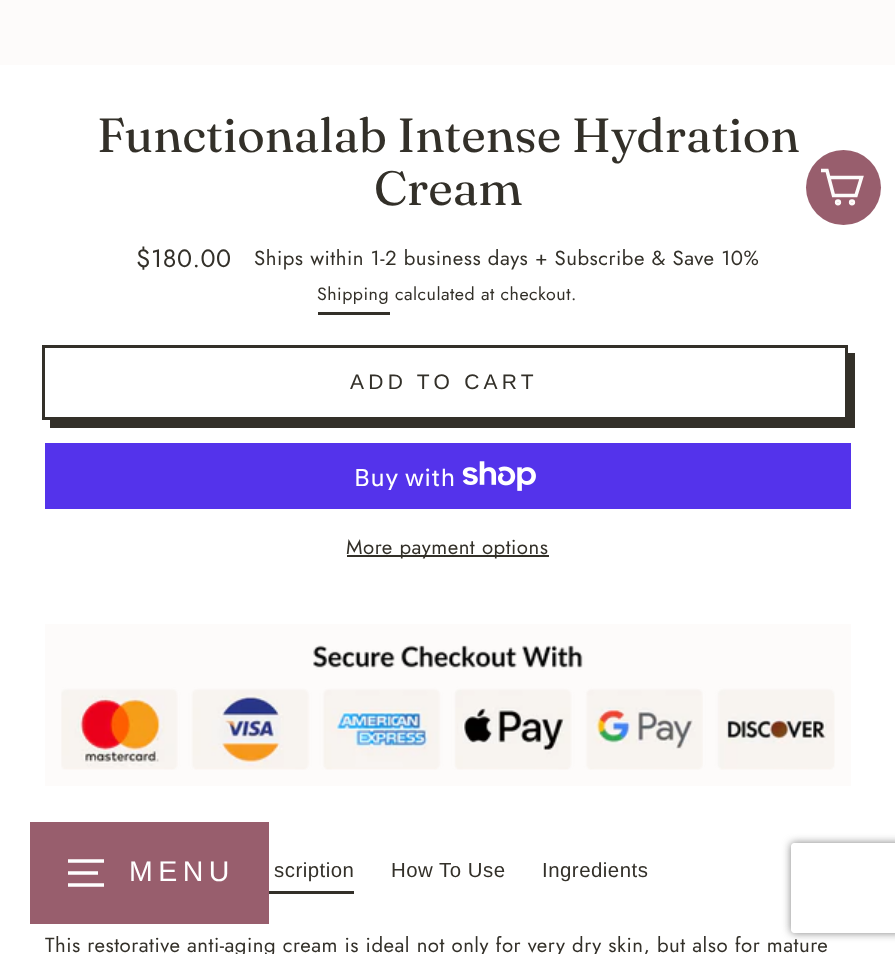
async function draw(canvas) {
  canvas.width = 895;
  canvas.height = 954;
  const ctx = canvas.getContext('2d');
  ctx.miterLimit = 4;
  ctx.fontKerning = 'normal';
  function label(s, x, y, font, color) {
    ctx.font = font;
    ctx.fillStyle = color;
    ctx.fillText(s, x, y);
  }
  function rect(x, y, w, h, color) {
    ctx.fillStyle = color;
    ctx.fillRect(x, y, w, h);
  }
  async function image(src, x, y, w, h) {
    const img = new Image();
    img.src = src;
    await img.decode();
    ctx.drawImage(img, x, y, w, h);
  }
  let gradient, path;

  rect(0, 0, 895, 954, '#fff');
  gradient = ctx.createLinearGradient(-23, -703, 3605, -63);
  gradient.addColorStop(0.4, '#fdfbfa');
  gradient.addColorStop(0.63, '#f9f2ef');
  gradient.addColorStop(0.79, '#fdfbfa');
  ctx.fillStyle = gradient;
  ctx.fillRect(0, 0, 895, 65);
  label('Functionalab Intense Hydration', 97, 152, '48px Fraunces', '#333029');
  label('Cream', 374, 205, '48px Fraunces', '#333029');
  ctx.letterSpacing = '0.5px';
  label('$180.00', 136, 267, '25px Jost', '#333029');
  label('Ships within 1-2 business days + Subscribe & Save 10%', 254, 265, '20.4px Jost', '#333029');
  rect(318, 312, 72, 3, '#333029');
  label('Shipping calculated at checkout.', 317, 300, '17.8px Jost', '#333029');
  path = new Path2D('M50 420V428H855V353H847V420Z');
  ctx.fill(path);
  ctx.strokeStyle = '#333029';
  ctx.lineWidth = 3;
  ctx.strokeRect(43.5, 346.5, 803, 72);
  ctx.letterSpacing = '4.25px';
  label('ADD TO CART', 350, 389, '21px Liberation Sans', '#333029');
  rect(45, 443, 806, 66, '#5433eb');
  ctx.letterSpacing = '0.5px';
  label('Buy with', 354, 486, '24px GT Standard', '#fff');
  await image('assets/img1.png', 462, 461, 74, 30);
  rect(347, 555, 202, 2, '#333029');
  label('More payment options', 346, 554, '20.4px Jost', '#333029');
  gradient = ctx.createLinearGradient(80, 427, 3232, 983);
  gradient.addColorStop(0.4, '#fdfbfa');
  gradient.addColorStop(0.63, '#f9f2ef');
  gradient.addColorStop(0.79, '#fdfbfa');
  ctx.fillStyle = gradient;
  ctx.fillRect(45, 624, 806, 162);
  await image('assets/img2.png', 61, 645, 774, 125);
  label('scription', 274, 877, '20.4px Liberation Sans', '#333029');
  rect(269, 891, 85, 3, '#333029');
  label('How To Use', 391, 877, '20.4px Liberation Sans', '#333029');
  label('Ingredients', 542, 877, '20.4px Liberation Sans', '#333029');
  label('This restorative anti-aging cream is ideal not only for very dry skin, but also for mature', 45, 952, '20.4px Jost', '#333029');
  ctx.fillStyle = '#985e6d';
  ctx.beginPath();
  ctx.arc(843.5, 187.5, 37.5, 0, 2 * Math.PI);
  ctx.fill();
  path = new Path2D('M829 177.5H861.5L856 195.5H833.5L827 170.5H821');
  ctx.strokeStyle = '#fdfbfa';
  ctx.lineWidth = 3.5;
  ctx.stroke(path);
  ctx.beginPath();
  ctx.arc(838, 202.3, 1.4, 0, 2 * Math.PI);
  ctx.stroke();
  ctx.beginPath();
  ctx.arc(852, 202.3, 1.4, 0, 2 * Math.PI);
  ctx.stroke();
  rect(30, 822, 239, 102, '#985e6d');
  path = new Path2D('M68 861H104M68 873H98M68 885H104');
  ctx.strokeStyle = '#fff';
  ctx.stroke(path);
  ctx.letterSpacing = '5.5px';
  label('MENU', 129, 881, '28.5px Liberation Sans', '#fff');
  ctx.save();
  path = new Path2D('M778 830H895V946H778ZM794 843H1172C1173.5 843 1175 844.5 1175 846V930C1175 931.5 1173.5 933 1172 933H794C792.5 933 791 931.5 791 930V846C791 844.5 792.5 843 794 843Z');
  ctx.clip(path, 'evenodd');
  ctx.fillStyle = '#808080';
  ctx.filter = 'blur(4px)';
  ctx.beginPath();
  ctx.roundRect(791, 843, 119, 90, 3);
  ctx.fill();
  ctx.filter = 'none';
  ctx.restore();
}

draw(document.querySelector('canvas'));
